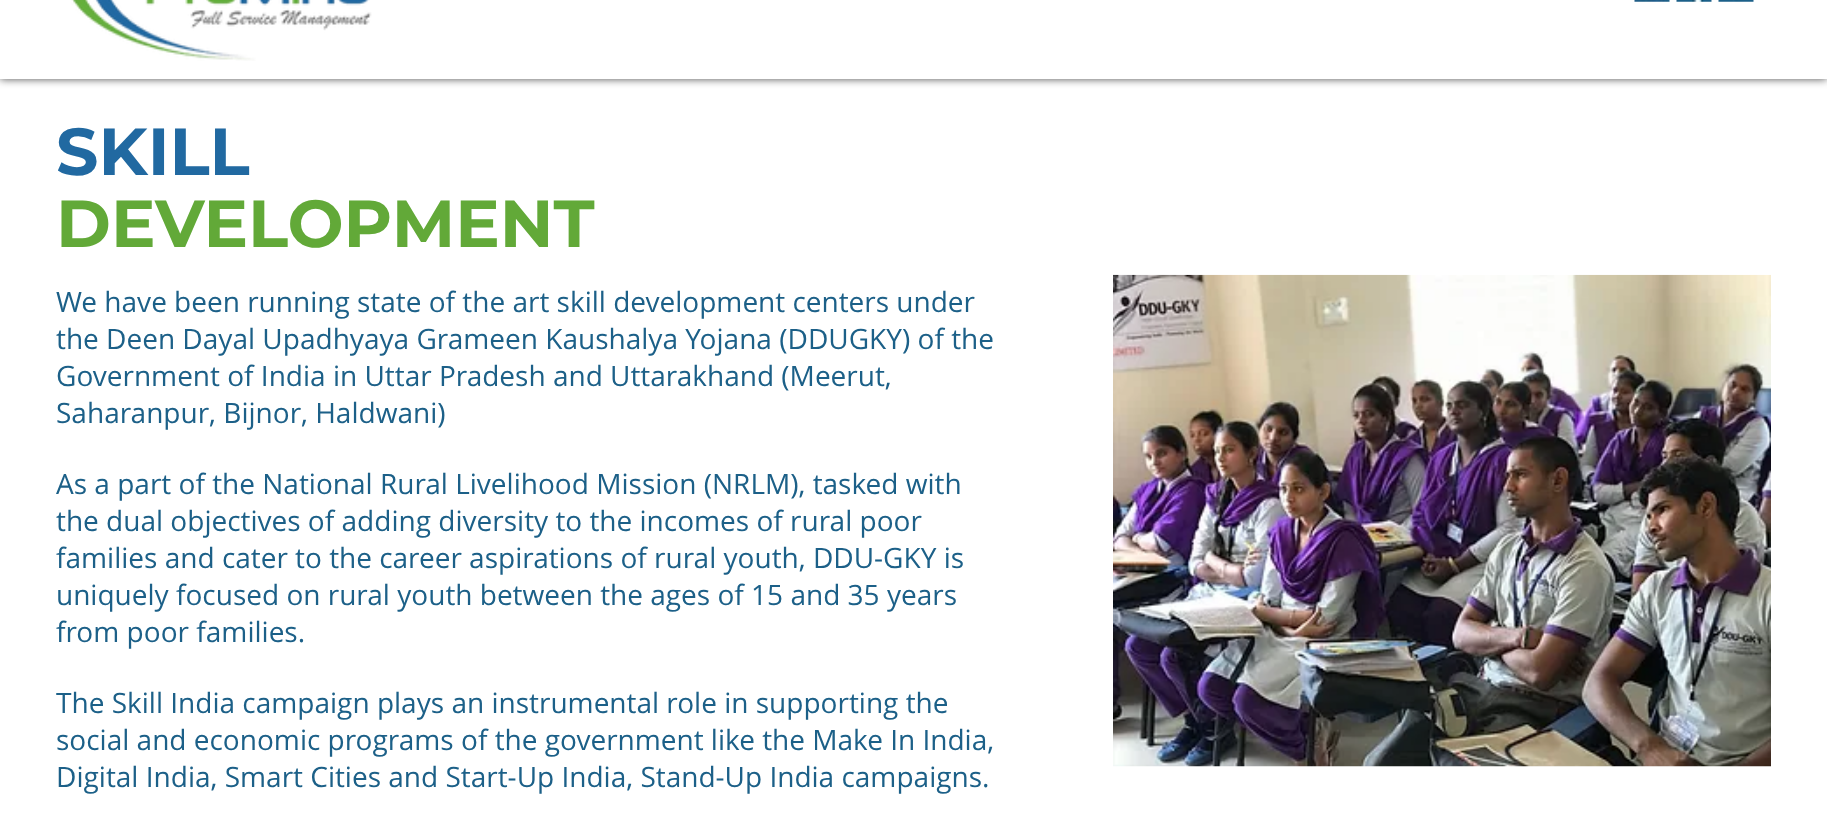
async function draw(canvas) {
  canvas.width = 1827;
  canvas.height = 836;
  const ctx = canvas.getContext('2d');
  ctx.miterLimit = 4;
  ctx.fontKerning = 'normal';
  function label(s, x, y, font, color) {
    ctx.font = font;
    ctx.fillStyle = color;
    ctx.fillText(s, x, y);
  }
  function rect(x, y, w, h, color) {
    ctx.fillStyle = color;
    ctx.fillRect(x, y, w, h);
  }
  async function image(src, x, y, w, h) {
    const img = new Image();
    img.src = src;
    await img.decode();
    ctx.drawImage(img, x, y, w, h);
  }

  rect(0, 0, 1827, 836, '#fff');
  ctx.fillStyle = '#000000b3';
  ctx.filter = 'blur(4.5px)';
  ctx.beginPath();
  ctx.rect(0, -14, 1827, 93);
  ctx.fill();
  ctx.filter = 'none';
  rect(0, 0, 1827, 79, '#fff');
  await image('assets/img1.png', 71, 0, 301, 61);
  await image('assets/img2.png', 1634, 0, 36, 2);
  await image('assets/img3.png', 1676, 0, 36, 2);
  await image('assets/img4.png', 1718, 0, 36, 2);
  label('SKILL', 56, 175, 'bold 66.5px Montserrat', '#2169a1');
  label('DEVELOPMENT', 56, 247, 'bold 66.5px Montserrat', '#62a938');
  label('We have been running state of the art skill development centers under', 56, 312, '28px Open Sans', '#1c6088');
  label('the Deen Dayal Upadhyaya Grameen Kaushalya Yojana (DDUGKY) of the', 56, 349, '28px Open Sans', '#1c6088');
  label('Government of India in Uttar Pradesh and Uttarakhand (Meerut,', 56, 386, '28px Open Sans', '#1c6088');
  label('Saharanpur, Bijnor, Haldwani)', 56, 423, '28px Open Sans', '#1c6088');
  label('As a part of the National Rural Livelihood Mission (NRLM), tasked with', 56, 494, '28px Open Sans', '#1c6088');
  label('the dual objectives of adding diversity to the incomes of rural poor', 56, 531, '28px Open Sans', '#1c6088');
  label('families and cater to the career aspirations of rural youth, DDU-GKY is', 56, 568, '28px Open Sans', '#1c6088');
  label('uniquely focused on rural youth between the ages of 15 and 35 years', 56, 605, '28px Open Sans', '#1c6088');
  label('from poor families.', 56, 642, '28px Open Sans', '#1c6088');
  label('The Skill India campaign plays an instrumental role in supporting the', 56, 713, '28px Open Sans', '#1c6088');
  label('social and economic programs of the government like the Make In India,', 56, 750, '28px Open Sans', '#1c6088');
  label('Digital India, Smart Cities and Start-Up India, Stand-Up India campaigns.', 56, 787, '28px Open Sans', '#1c6088');
  await image('assets/img5.png', 1113, 274, 658, 493);
}

draw(document.querySelector('canvas'));
